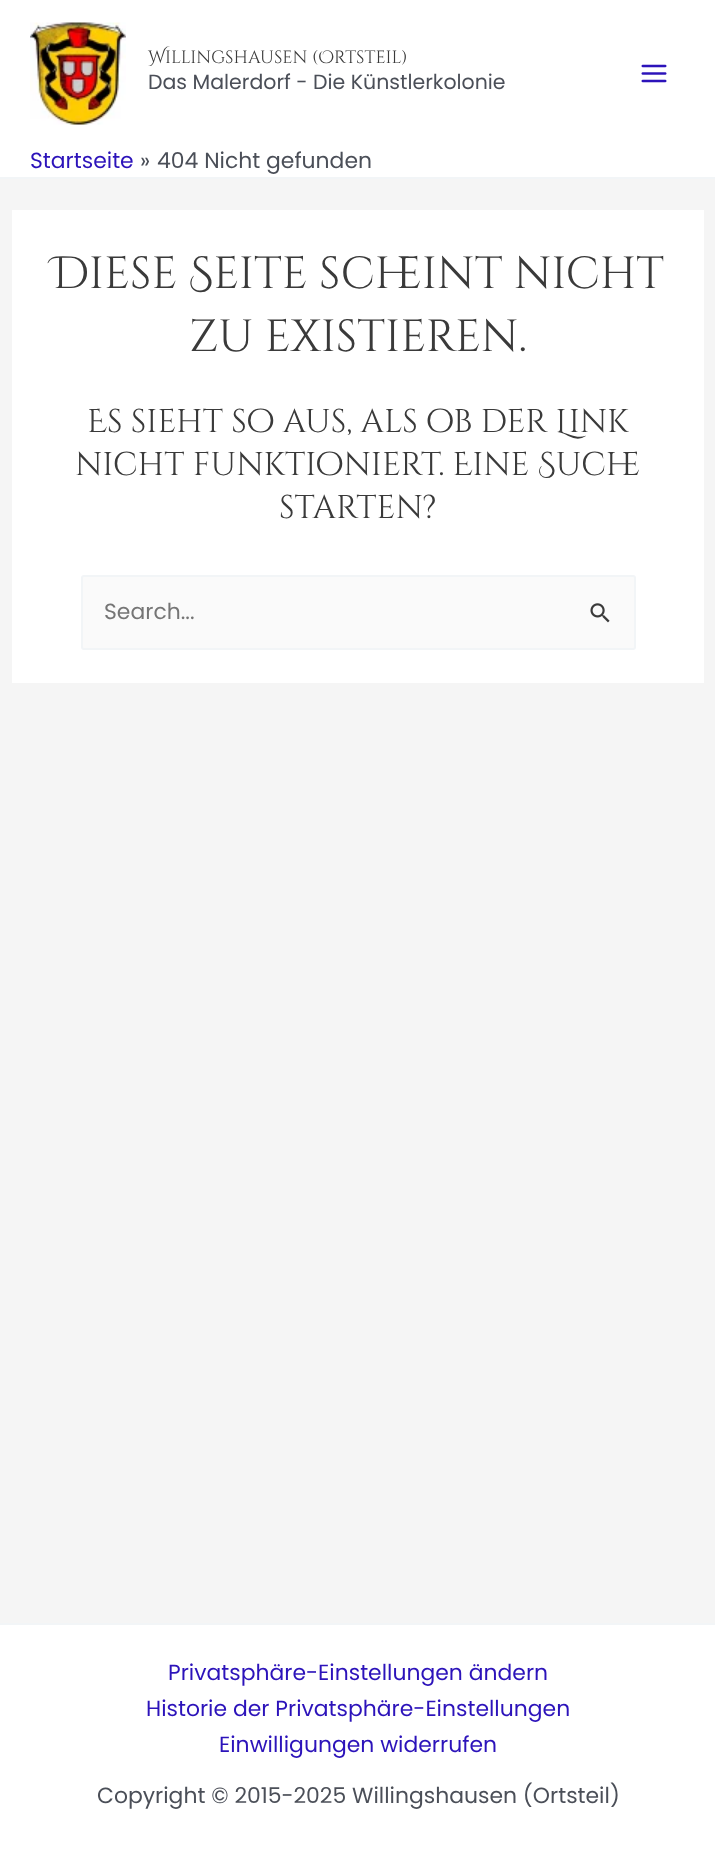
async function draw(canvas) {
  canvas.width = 715;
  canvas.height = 1858;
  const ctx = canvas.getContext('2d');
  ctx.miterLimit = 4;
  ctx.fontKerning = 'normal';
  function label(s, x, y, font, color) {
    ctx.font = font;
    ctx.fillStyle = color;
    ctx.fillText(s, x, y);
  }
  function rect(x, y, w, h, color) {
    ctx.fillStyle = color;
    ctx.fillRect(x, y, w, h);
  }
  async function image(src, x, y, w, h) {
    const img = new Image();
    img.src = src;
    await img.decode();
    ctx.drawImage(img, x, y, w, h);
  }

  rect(0, 0, 715, 1858, '#f5f5f5');
  rect(0, 0, 715, 177, '#fff');
  rect(0, 177, 715, 2, '#f2f5f7');
  await image('assets/img1.png', 30, 22, 96, 103);
  label('Willingshausen (Ortsteil)', 148, 63, '17.75px Cinzel Decorative', '#3a3a3a');
  label('Das Malerdorf - Die Künstlerkolonie', 148, 89, '20.5px Poppins', '#4b4f58');
  await image('assets/img2.png', 641, 64, 26, 19);
  label('Startseite', 30, 168, '21.9px Poppins', '#2c13ba');
  label('»', 140, 168, '21.9px Poppins', '#4b4f58');
  label('404 Nicht gefunden', 157, 168, '21.9px Poppins', '#4b4f58');
  rect(12, 210, 692, 473, '#fff');
  label('Diese Seite scheint nicht', 52, 288, '45px Cinzel Decorative', '#3a3a3a');
  label('zu existieren.', 189, 351, '45px Cinzel Decorative', '#3a3a3a');
  label('Es sieht so aus, als ob der Link', 87, 432, '32.8px Cinzel Decorative', '#3a3a3a');
  label('nicht funktioniert. Eine Suche', 75, 475, '32.8px Cinzel Decorative', '#3a3a3a');
  label('starten?', 279, 518, '32.8px Cinzel Decorative', '#3a3a3a');
  ctx.fillStyle = '#fafafa';
  ctx.beginPath();
  ctx.roundRect(82, 576, 553, 73, 2);
  ctx.fill();
  ctx.strokeStyle = '#f2f5f7';
  ctx.lineWidth = 2;
  ctx.stroke();
  label('Search...', 104, 619, '21.9px Poppins', '#757575');
  await image('assets/img3.png', 590, 603, 20, 20);
  rect(0, 1625, 715, 233, '#fff');
  rect(0, 1623, 715, 2, '#f2f5f7');
  label('Privatsphäre-Einstellungen ändern', 168, 1680, '21.9px Poppins', '#2c13ba');
  label('Historie der Privatsphäre-Einstellungen', 146, 1716, '21.9px Poppins', '#2c13ba');
  label('Einwilligungen widerrufen', 219, 1752, '21.9px Poppins', '#2c13ba');
  label('Copyright © 2015-2025 Willingshausen (Ortsteil)', 97, 1803, '21.9px Poppins', '#4b4f58');
}

draw(document.querySelector('canvas'));
